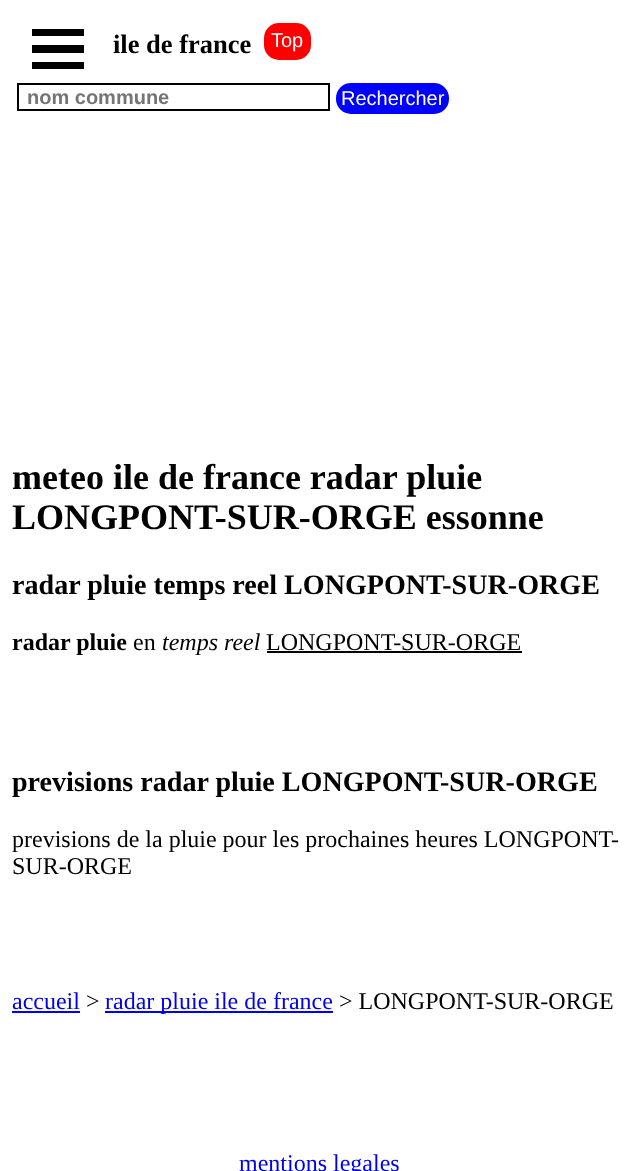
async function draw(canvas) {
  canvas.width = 639;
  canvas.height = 1171;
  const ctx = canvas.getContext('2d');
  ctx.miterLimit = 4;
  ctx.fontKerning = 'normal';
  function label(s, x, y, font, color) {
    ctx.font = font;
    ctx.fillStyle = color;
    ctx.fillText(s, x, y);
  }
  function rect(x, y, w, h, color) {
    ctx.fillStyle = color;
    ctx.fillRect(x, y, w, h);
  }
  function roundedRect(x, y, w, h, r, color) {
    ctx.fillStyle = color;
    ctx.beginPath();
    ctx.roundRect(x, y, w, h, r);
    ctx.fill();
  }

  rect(0, 0, 639, 1171, '#fff');
  rect(32, 29, 52, 7, '#000');
  rect(32, 45, 52, 8, '#000');
  rect(32, 62, 52, 7, '#000');
  label('ile de france', 113, 53, 'bold 26.5px Liberation Serif', '#000');
  roundedRect(264, 23, 47, 37, 15, '#f00');
  label('Top', 271, 47, '20px Liberation Sans', '#fff');
  ctx.strokeStyle = '#000';
  ctx.lineWidth = 2;
  ctx.strokeRect(18, 84, 311, 26);
  label('nom commune', 27, 104, 'bold 20px Liberation Sans', '#757575');
  roundedRect(336, 83, 113, 31, 15, '#00f');
  label('Rechercher', 341, 105, '20px Liberation Sans', '#fff');
  label('meteo ile de france radar pluie', 12, 489, 'bold 36px Liberation Serif', '#000');
  label('LONGPONT-SUR-ORGE essonne', 12, 529, 'bold 36px Liberation Serif', '#000');
  label('radar pluie temps reel LONGPONT-SUR-ORGE', 12, 594, 'bold 28.1px Liberation Serif', '#000');
  label('radar pluie', 12, 650, 'bold 24px Liberation Serif', '#000');
  label('en', 133, 650, '24px Liberation Serif', '#000');
  label('temps reel', 162, 650, 'italic 24px Liberation Serif', '#000');
  label('LONGPONT-SUR-ORGE', 266, 650, '24px Liberation Serif', '#000');
  rect(267, 651, 255, 2, '#000');
  label('previsions radar pluie LONGPONT-SUR-ORGE', 12, 791, 'bold 28.1px Liberation Serif', '#000');
  label('previsions de la pluie pour les prochaines heures LONGPONT-', 12, 847, '24px Liberation Serif', '#000');
  label('SUR-ORGE', 12, 874, '24px Liberation Serif', '#000');
  label('accueil', 12, 1009, '24px Liberation Serif', '#00e');
  rect(12, 1011, 68, 2, '#00e');
  label('>', 86, 1009, '24px Liberation Serif', '#000');
  rect(105, 1011, 228, 2, '#00e');
  label('radar pluie ile de france', 105, 1009, '24px Liberation Serif', '#00e');
  label('> LONGPONT-SUR-ORGE', 339, 1009, '24px Liberation Serif', '#000');
  label('mentions legales', 239, 1171, '24px Liberation Serif', '#00e');
}

draw(document.querySelector('canvas'));
